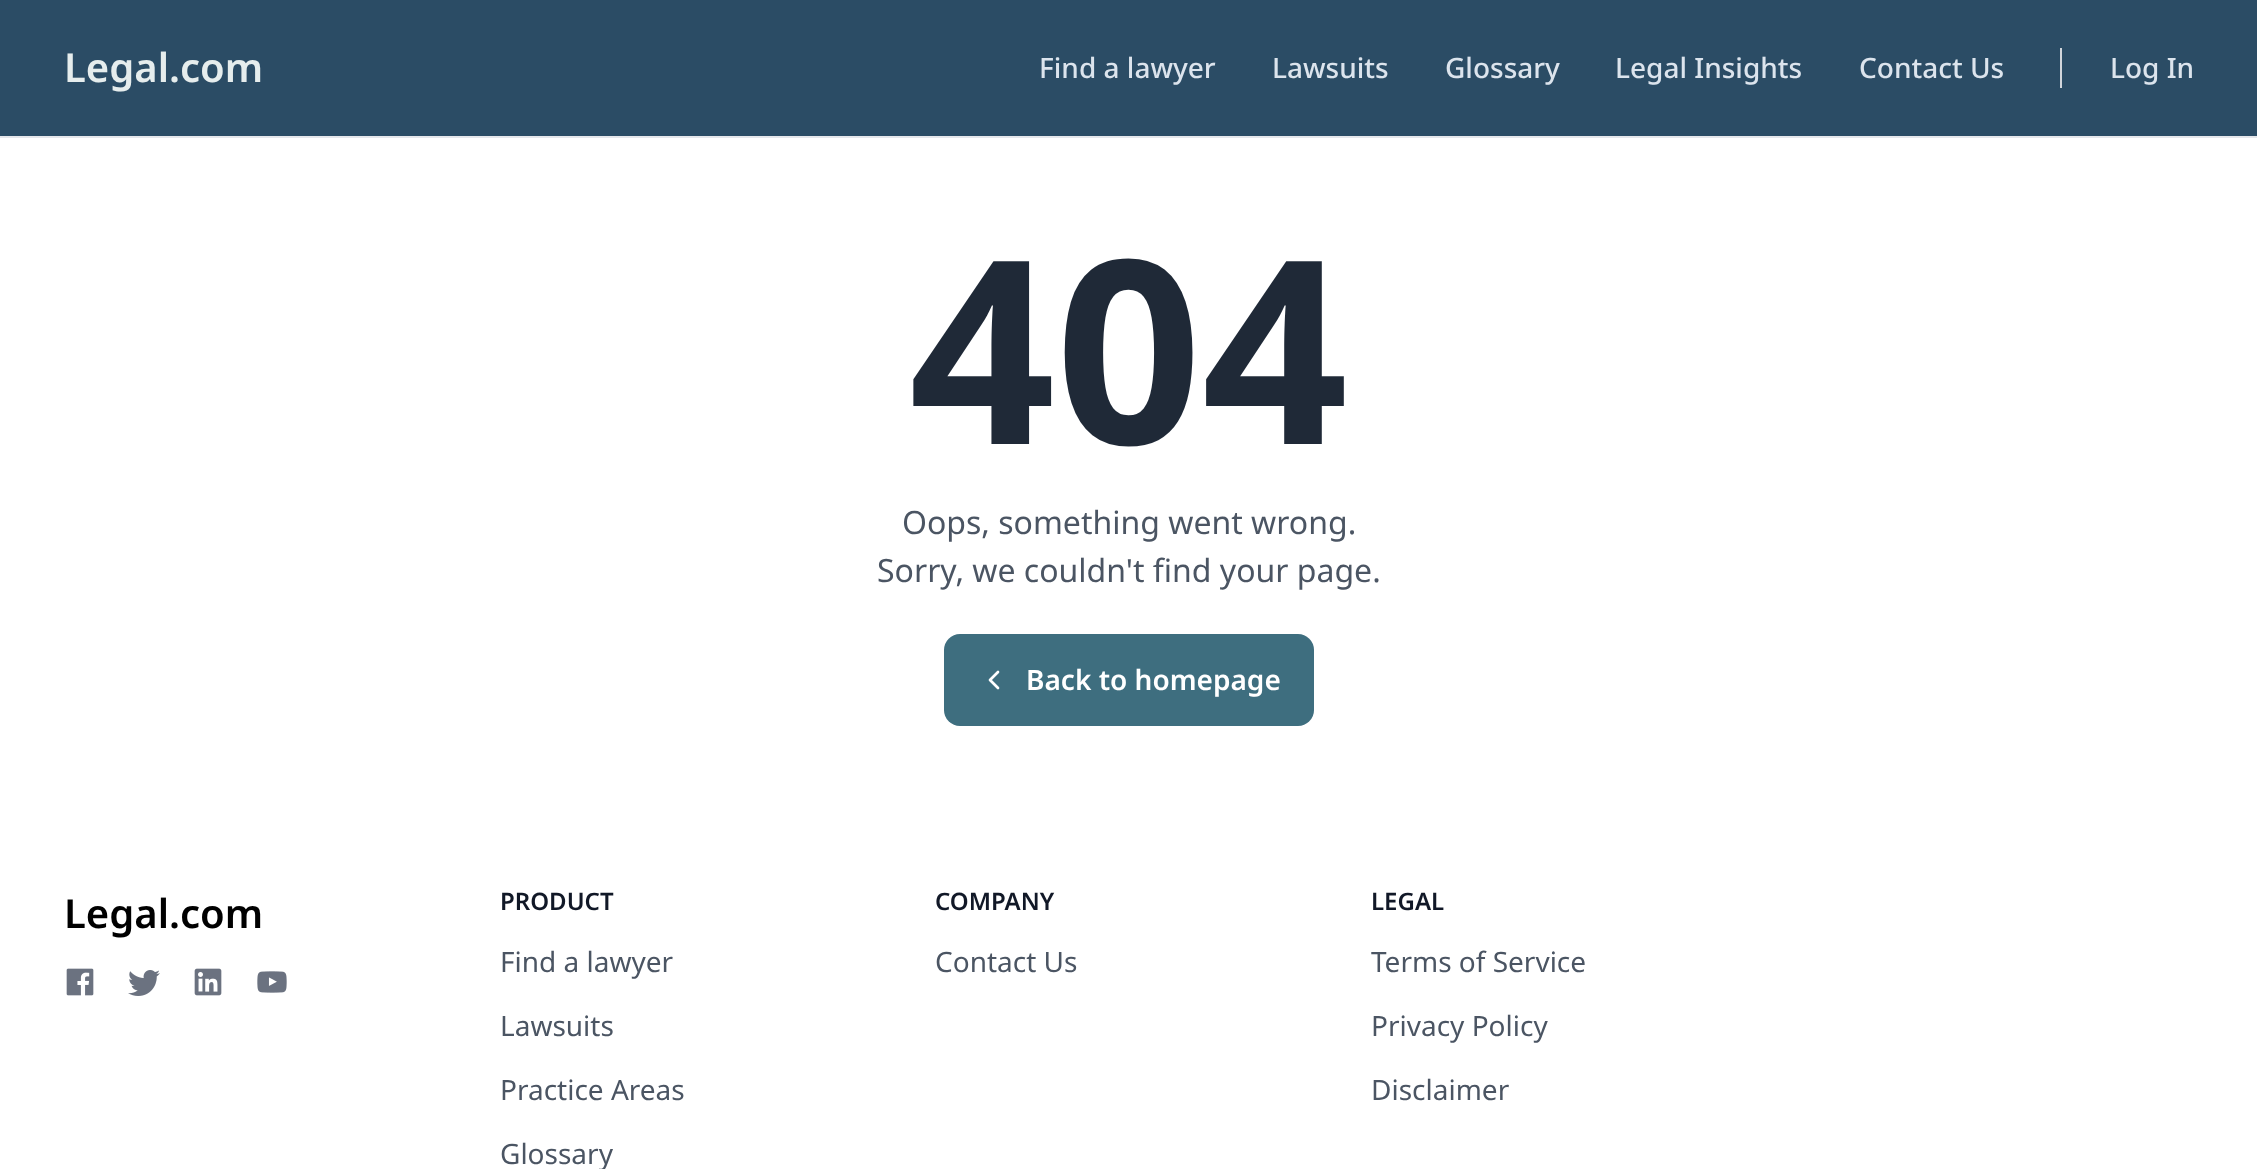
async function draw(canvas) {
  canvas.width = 2257;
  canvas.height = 1169;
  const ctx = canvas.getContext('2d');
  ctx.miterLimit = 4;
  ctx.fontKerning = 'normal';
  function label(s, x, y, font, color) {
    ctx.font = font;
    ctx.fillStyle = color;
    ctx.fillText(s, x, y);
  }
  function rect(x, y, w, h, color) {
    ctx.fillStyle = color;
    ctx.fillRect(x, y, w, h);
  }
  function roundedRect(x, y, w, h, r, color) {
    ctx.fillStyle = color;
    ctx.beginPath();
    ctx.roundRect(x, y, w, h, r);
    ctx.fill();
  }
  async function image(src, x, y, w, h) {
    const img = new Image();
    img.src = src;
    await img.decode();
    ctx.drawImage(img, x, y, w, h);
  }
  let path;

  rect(0, 0, 2257, 1169, '#fff');
  rect(0, 0, 2257, 136, '#2b4c65');
  rect(0, 136, 2257, 2, '#e5e7eb');
  label('Legal.com', 64, 82, '600 40px Noto Sans', '#e6eded');
  label('Find a lawyer', 1039, 78, '500 28px Noto Sans', '#dce4ed');
  label('Lawsuits', 1272, 78, '500 28px Noto Sans', '#dce4ed');
  label('Glossary', 1445, 78, '500 28px Noto Sans', '#dce4ed');
  label('Legal Insights', 1615, 78, '500 28px Noto Sans', '#dce4ed');
  label('Contact Us', 1859, 78, '500 28px Noto Sans', '#dce4ed');
  rect(2060, 48, 2, 40, '#d1d5db');
  label('Log In', 2110, 78, '500 28px Noto Sans', '#dce4ed');
  label('404', 909, 444, 'bold 256px Noto Sans', '#1f2937');
  label('Oops, something went wrong.', 902, 534, '32px Noto Sans', '#4b5563');
  label('Sorry, we couldn\'t find your page.', 877, 582, '32px Noto Sans', '#4b5563');
  roundedRect(944, 634, 370, 92, 16, '#3e6e7f');
  path = new Path2D('M998 688L990 680L998 672');
  ctx.strokeStyle = '#fff';
  ctx.lineWidth = 2.7;
  ctx.lineCap = 'round';
  ctx.lineJoin = 'round';
  ctx.stroke(path);
  label('Back to homepage', 1026, 690, '600 28px Noto Sans', '#fff');
  label('Legal.com', 64, 928, '600 40px Noto Sans', '#000');
  await image('assets/img1.png', 66, 968, 28, 28);
  await image('assets/img2.png', 128, 970, 32, 26);
  await image('assets/img3.png', 194, 968, 28, 28);
  await image('assets/img4.png', 257, 971, 30, 22);
  label('PRODUCT', 500, 910, '600 24px Noto Sans', '#111827');
  label('Find a lawyer', 500, 972, '28px Noto Sans', '#4b5563');
  label('Lawsuits', 500, 1036, '28px Noto Sans', '#4b5563');
  label('Practice Areas', 500, 1100, '28px Noto Sans', '#4b5563');
  label('Glossary', 500, 1164, '28px Noto Sans', '#4b5563');
  label('COMPANY', 935, 910, '600 24px Noto Sans', '#111827');
  label('Contact Us', 935, 972, '28px Noto Sans', '#4b5563');
  label('LEGAL', 1371, 910, '600 24px Noto Sans', '#111827');
  label('Terms of Service', 1371, 972, '28px Noto Sans', '#4b5563');
  label('Privacy Policy', 1371, 1036, '28px Noto Sans', '#4b5563');
  label('Disclaimer', 1371, 1100, '28px Noto Sans', '#4b5563');
}

draw(document.querySelector('canvas'));
